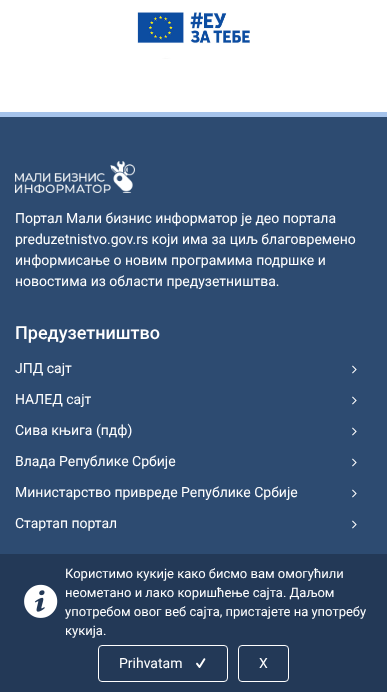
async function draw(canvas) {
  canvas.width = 387;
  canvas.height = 692;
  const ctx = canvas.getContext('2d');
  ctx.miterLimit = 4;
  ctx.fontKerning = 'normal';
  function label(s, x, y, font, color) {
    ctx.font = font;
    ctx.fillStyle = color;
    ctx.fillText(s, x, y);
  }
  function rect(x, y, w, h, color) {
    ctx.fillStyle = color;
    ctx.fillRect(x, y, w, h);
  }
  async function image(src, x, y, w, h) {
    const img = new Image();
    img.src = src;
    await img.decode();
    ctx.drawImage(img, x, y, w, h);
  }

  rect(0, 0, 387, 692, '#fff');
  await image('assets/img1.png', 137, 12, 113, 47);
  rect(0, 117, 387, 437, '#2d4b71');
  rect(0, 112, 387, 5, '#a5c3eb');
  await image('assets/img2.png', 15, 161, 120, 32);
  label('Портал Мали бизнис информатор је део портала', 15, 223, '14px Roboto', '#fff');
  label('preduzetnistvo.gov.rs који има за циљ благовремено', 15, 244, '14px Roboto', '#fff');
  label('информисање о новим програмима подршке и', 15, 265, '14px Roboto', '#fff');
  label('новостима из области предузетништва.', 15, 286, '14px Roboto', '#fff');
  label('Предузетништво', 15, 339, '500 18px Roboto', '#fff');
  label('ЈПД сајт', 15, 373, '14px Roboto', '#fff');
  await image('assets/img3.png', 352, 365, 5, 9);
  label('НАЛЕД сајт', 15, 404, '14px Roboto', '#fff');
  await image('assets/img3.png', 352, 396, 5, 9);
  label('Сива књига (пдф)', 15, 435, '14px Roboto', '#fff');
  await image('assets/img3.png', 352, 427, 5, 9);
  label('Влада Републике Србије', 15, 466, '14px Roboto', '#fff');
  await image('assets/img3.png', 352, 458, 5, 9);
  label('Министарство привреде Републике Србије', 15, 497, '14px Roboto', '#fff');
  await image('assets/img3.png', 352, 489, 5, 9);
  label('Стартап портал', 15, 528, '14px Roboto', '#fff');
  await image('assets/img3.png', 352, 520, 5, 9);
  rect(0, 554, 387, 138, '#233957');
  await image('assets/img4.png', 24, 584, 34, 34);
  label('Користимо кукије како бисмо вам омогућили', 65, 578, '13px Roboto', '#fff');
  label('неометано и лако коришћење сајта. Даљом', 65, 597, '13px Roboto', '#fff');
  label('употребом овог веб сајта, пристајете на употребу', 65, 616, '13px Roboto', '#fff');
  label('кукија.', 65, 635, '13px Roboto', '#fff');
  ctx.beginPath();
  ctx.roundRect(98.5, 645.5, 129, 36, 3.5);
  ctx.strokeStyle = '#fff';
  ctx.stroke();
  label('Prihvatam', 119, 668, '14px Roboto', '#fff');
  await image('assets/img5.png', 196, 658, 10, 10);
  ctx.beginPath();
  ctx.roundRect(238.5, 645.5, 50, 36, 3.5);
  ctx.stroke();
  label('X', 259, 668, '14px Roboto', '#fff');
}

draw(document.querySelector('canvas'));
